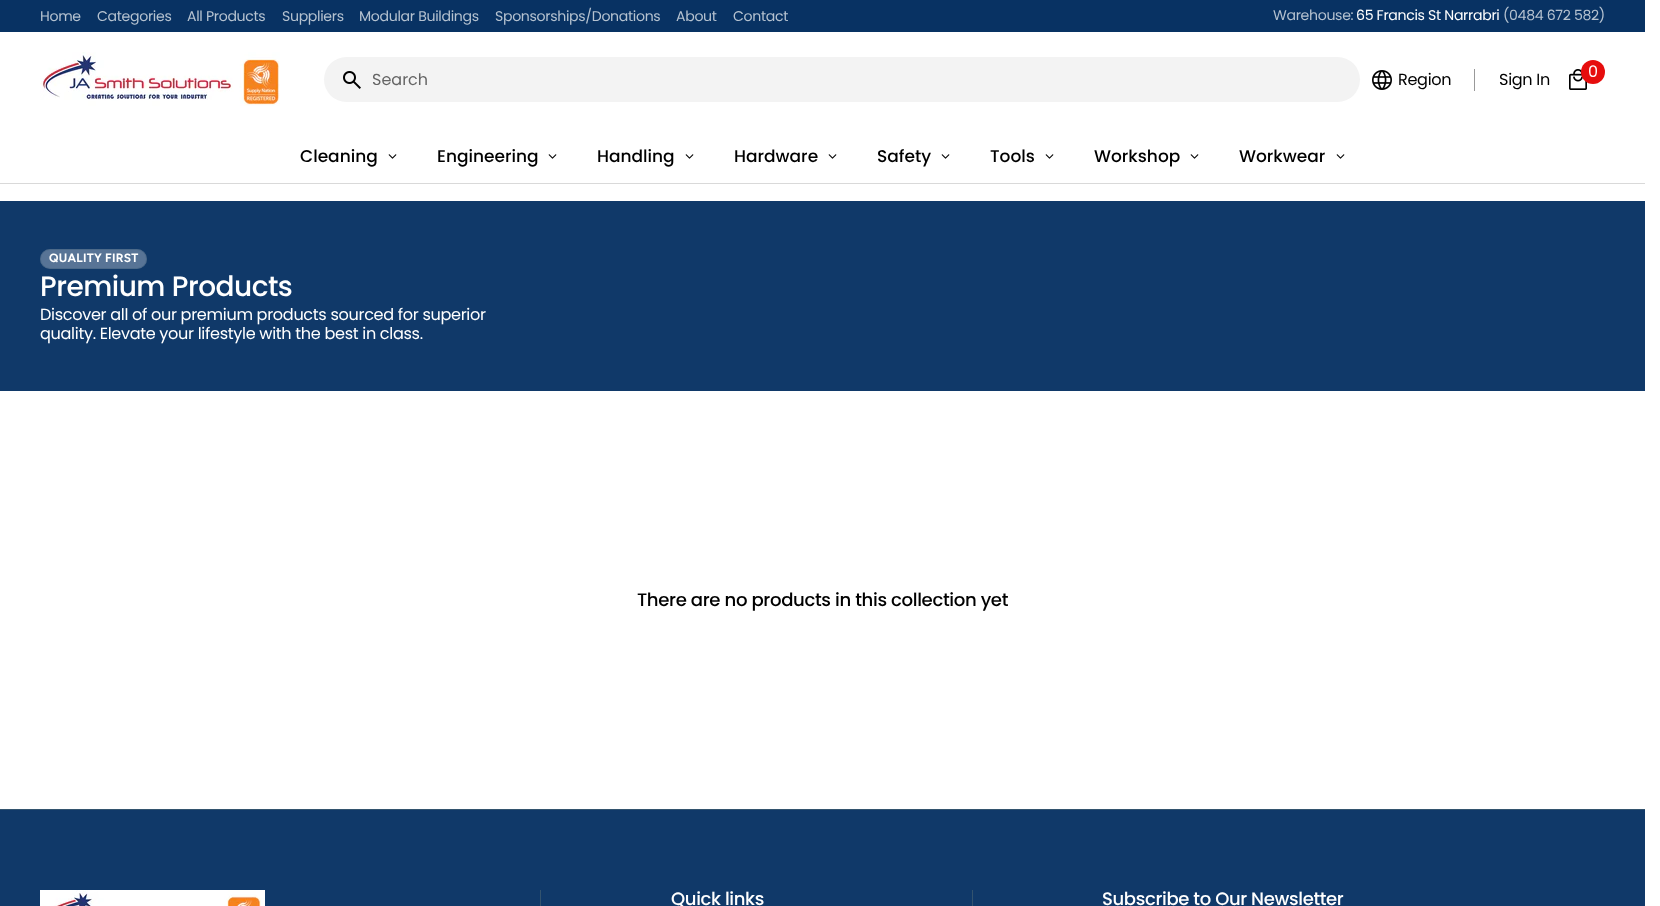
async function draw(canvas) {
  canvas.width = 1660;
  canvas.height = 906;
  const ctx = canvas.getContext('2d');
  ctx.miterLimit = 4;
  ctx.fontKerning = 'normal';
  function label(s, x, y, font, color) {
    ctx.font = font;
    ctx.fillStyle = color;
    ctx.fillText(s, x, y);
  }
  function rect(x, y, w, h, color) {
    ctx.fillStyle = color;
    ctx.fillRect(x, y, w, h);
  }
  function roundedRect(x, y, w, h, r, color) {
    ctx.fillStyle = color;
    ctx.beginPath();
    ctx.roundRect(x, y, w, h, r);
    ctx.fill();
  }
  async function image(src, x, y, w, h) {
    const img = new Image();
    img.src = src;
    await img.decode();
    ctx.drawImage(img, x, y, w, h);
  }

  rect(0, 0, 1660, 906, '#fff');
  rect(0, 0, 1645, 32, '#083263');
  ctx.letterSpacing = '-0.32px';
  label('Home', 40, 21, '14.1px Poppins', '#b5c2d0');
  label('Categories', 97, 21, '14.1px Poppins', '#b5c2d0');
  label('All Products', 187, 21, '14.1px Poppins', '#b5c2d0');
  label('Suppliers', 282, 21, '14.1px Poppins', '#b5c2d0');
  label('Modular Buildings', 359, 21, '14.1px Poppins', '#b5c2d0');
  label('Sponsorships/Donations', 495, 21, '14.1px Poppins', '#b5c2d0');
  label('About', 676, 21, '14.1px Poppins', '#b5c2d0');
  label('Contact', 733, 21, '14.1px Poppins', '#b5c2d0');
  label('Warehouse:', 1273, 20, '14.1px Poppins', '#b5c2d0');
  label('65 Francis St Narrabri', 1356, 20, '14.1px Poppins', '#fff');
  label('(0484 672 582)', 1503, 20, '14.1px Poppins', '#b5c2d0');
  await image('assets/img1.png', 40, 52, 240, 54);
  roundedRect(324, 57, 1036, 45, 22.5, '#f3f3f3');
  await image('assets/img2.png', 343, 71, 18, 18);
  ctx.letterSpacing = '0px';
  label('Search', 372, 85, '16px Poppins', '#656565');
  await image('assets/img3.png', 1372, 70, 20, 20);
  ctx.letterSpacing = '-0.32px';
  label('Region', 1398, 85, '16.1px Poppins', '#000');
  rect(1474, 69, 1, 22, '#999');
  label('Sign In', 1499, 85, '16.1px Poppins', '#000');
  await image('assets/img4.png', 1569, 69, 18, 21);
  ctx.fillStyle = '#e60d0d';
  ctx.beginPath();
  ctx.arc(1593, 72, 12, 0, 2 * Math.PI);
  ctx.fill();
  ctx.letterSpacing = '0px';
  label('0', 1588, 77, '16px Poppins', '#fff');
  label('Cleaning', 300, 162, '500 17px Poppins', '#000');
  await image('assets/img5.png', 388, 154, 9, 5);
  label('Engineering', 437, 162, '500 17px Poppins', '#000');
  await image('assets/img5.png', 548, 154, 9, 5);
  label('Handling', 597, 162, '500 17px Poppins', '#000');
  await image('assets/img5.png', 685, 154, 9, 5);
  label('Hardware', 734, 162, '500 17px Poppins', '#000');
  await image('assets/img5.png', 828, 154, 9, 5);
  label('Safety', 877, 162, '500 17px Poppins', '#000');
  await image('assets/img5.png', 941, 154, 9, 5);
  label('Tools', 990, 162, '500 17px Poppins', '#000');
  await image('assets/img5.png', 1045, 154, 9, 5);
  label('Workshop', 1094, 162, '500 17px Poppins', '#000');
  await image('assets/img5.png', 1190, 154, 9, 5);
  label('Workwear', 1239, 162, '500 17px Poppins', '#000');
  await image('assets/img5.png', 1336, 154, 9, 5);
  rect(0, 183, 1645, 1, '#d9d9d9');
  rect(0, 201, 1645, 190, '#103969');
  roundedRect(40, 249, 107, 20, 10, '#587496');
  ctx.beginPath();
  ctx.roundRect(40.5, 249.5, 106, 19, 9.5);
  ctx.strokeStyle = '#33536e4d';
  ctx.stroke();
  ctx.letterSpacing = '0.25px';
  label('QUALITY FIRST', 49, 262, 'bold 12px Figtree', '#fff');
  ctx.letterSpacing = '-0.5px';
  label('Premium Products', 40, 296, '500 28px Poppins', '#fff');
  ctx.letterSpacing = '-0.32px';
  label('Discover all of our premium products sourced for superior', 40, 320, '16.1px Poppins', '#fff');
  label('quality. Elevate your lifestyle with the best in class.', 40, 339, '16.1px Poppins', '#fff');
  ctx.letterSpacing = '-0.35px';
  label('There are no products in this collection yet', 637, 606, '500 18.1px Poppins', '#000');
  rect(0, 810, 1645, 96, '#103969');
  rect(0, 809, 1645, 1, '#33536e');
  await image('assets/img6.png', 40, 890, 225, 16);
  rect(540, 890, 1, 16, '#33536e');
  label('Quick links', 671, 905, '500 18px Poppins', '#fff');
  rect(972, 890, 1, 16, '#33536e');
  label('Subscribe to Our Newsletter', 1102, 905, '500 18px Poppins', '#fff');
}

draw(document.querySelector('canvas'));
